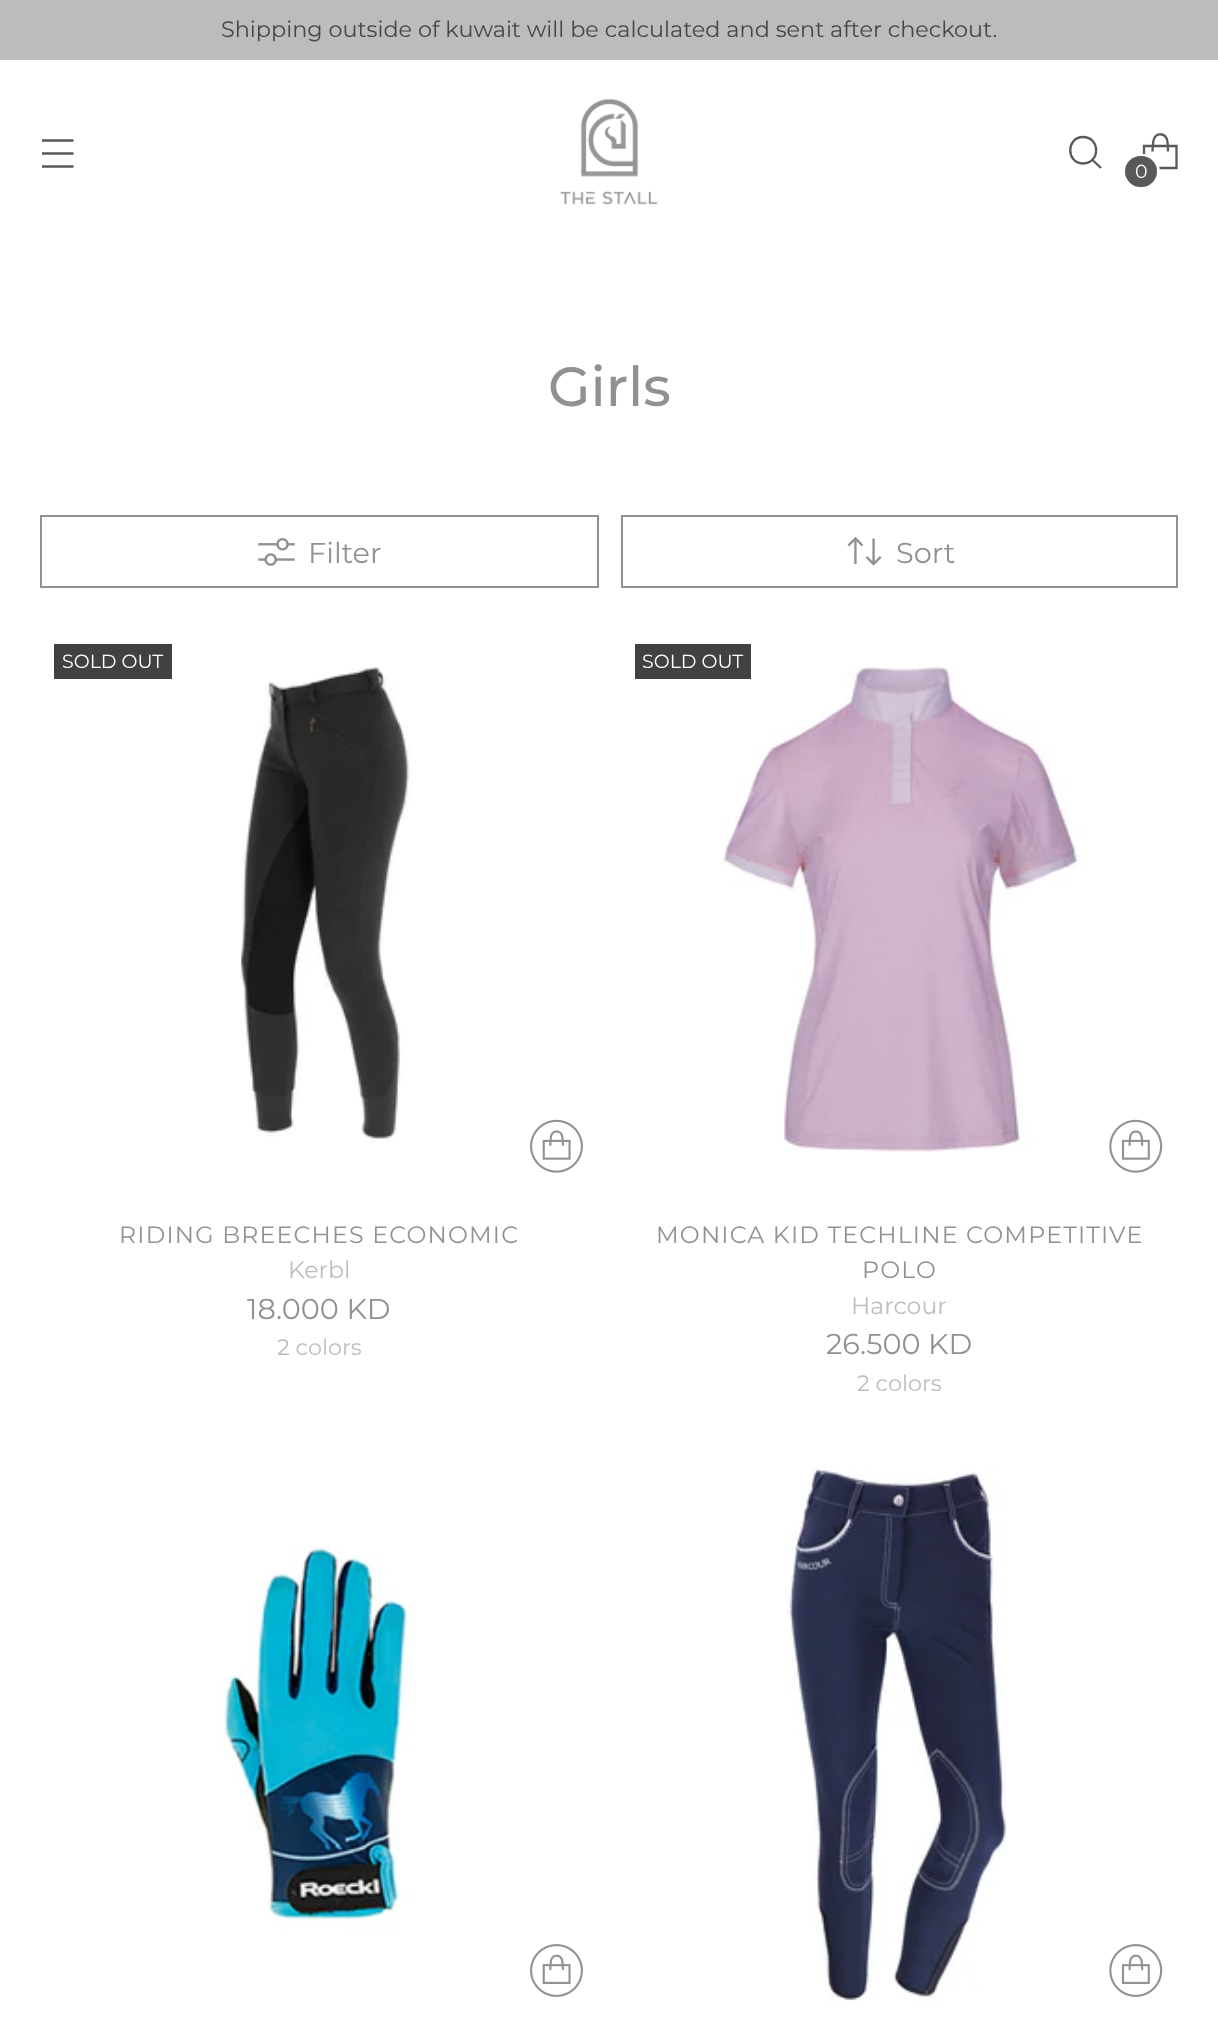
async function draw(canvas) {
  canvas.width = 1218;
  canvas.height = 2021;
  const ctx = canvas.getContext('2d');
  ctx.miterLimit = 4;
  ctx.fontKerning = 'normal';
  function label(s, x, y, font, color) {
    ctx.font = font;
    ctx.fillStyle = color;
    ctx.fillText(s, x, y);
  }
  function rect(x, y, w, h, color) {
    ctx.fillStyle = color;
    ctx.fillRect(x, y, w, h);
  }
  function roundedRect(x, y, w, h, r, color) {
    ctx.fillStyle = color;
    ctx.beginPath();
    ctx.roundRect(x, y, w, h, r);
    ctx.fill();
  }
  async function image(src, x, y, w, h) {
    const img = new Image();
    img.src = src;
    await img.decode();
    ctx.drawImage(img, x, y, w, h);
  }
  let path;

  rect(0, 0, 1218, 2021, '#fff');
  rect(0, 0, 1218, 60, '#bcbcbc');
  label('Shipping outside of kuwait will be calculated and sent after checkout.', 221, 37, '22.35px Montserrat', '#464646');
  path = new Path2D('M42 153.5H73.5M42 140.5H73.5M42 166.5H73.5');
  ctx.strokeStyle = '#595959';
  ctx.lineWidth = 2.3;
  ctx.stroke(path);
  await image('assets/img1.png', 560, 98, 98, 107);
  path = new Path2D('M1083 163.5C1100.5 163.5 1100.5 137 1083 137C1066 137 1066 163.5 1083 163.5Z');
  ctx.lineCap = 'round';
  ctx.stroke(path);
  path = new Path2D('M1092.5 160L1101 168');
  ctx.lineCap = 'butt';
  ctx.stroke(path);
  path = new Path2D('M1168 151.5C1168 147.5 1168 143 1167 139.5C1166 137 1164.5 135 1162 134.5C1152 132.5 1153 145 1152.5 151.5');
  ctx.lineJoin = 'bevel';
  ctx.stroke(path);
  path = new Path2D('M1176.5 168V146H1144V168Z');
  ctx.lineJoin = 'miter';
  ctx.stroke(path);
  ctx.beginPath();
  ctx.roundRect(1125.5, 155.5, 33, 34, 16.5);
  ctx.strokeStyle = '#fff';
  ctx.lineWidth = 3;
  ctx.stroke();
  roundedRect(1125, 156, 32, 31, 15.5, '#595959');
  label('0', 1135, 178, '19px Montserrat', '#fff');
  label('Girls', 548, 406, '500 55px Montserrat', '#919191');
  ctx.strokeStyle = '#919191';
  ctx.lineWidth = 2;
  ctx.strokeRect(41, 516, 557, 71);
  await image('assets/img2.png', 258, 538, 37, 28);
  label('Filter', 308, 563, '28.75px Montserrat', '#919191');
  ctx.strokeRect(622, 516, 555, 71);
  await image('assets/img3.png', 847, 537, 35, 29);
  label('Sort', 896, 563, '28.75px Montserrat', '#919191');
  rect(54, 644, 118, 35, '#414141');
  label('SOLD OUT', 62, 668, '19px Montserrat', '#fff');
  await image('assets/img4.png', 240, 667, 172, 476);
  await image('assets/img5.png', 530, 1119, 53, 54);
  ctx.letterSpacing = '1.2px';
  label('RIDING BREECHES ECONOMIC', 119, 1243, '23.7px Montserrat', '#919191');
  ctx.letterSpacing = '0px';
  label('Kerbl', 288, 1278, '23.7px Montserrat', '#bdbdbd');
  label('18.000 KD', 247, 1319, '28.75px Montserrat', '#919191');
  label('2 colors', 277, 1355, '22.35px Montserrat', '#bdbdbd');
  await image('assets/img6.png', 722, 667, 360, 485);
  rect(635, 644, 116, 35, '#414141');
  label('SOLD OUT', 642, 668, '19px Montserrat', '#fff');
  await image('assets/img7.png', 1109, 1119, 54, 54);
  ctx.letterSpacing = '1.2px';
  label('MONICA KID TECHLINE COMPETITIVE', 656, 1243, '23.7px Montserrat', '#919191');
  label('POLO', 862, 1278, '23.7px Montserrat', '#919191');
  ctx.letterSpacing = '0px';
  label('Harcour', 851, 1314, '23.7px Montserrat', '#bdbdbd');
  label('26.500 KD', 826, 1354, '28.75px Montserrat', '#919191');
  label('2 colors', 857, 1391, '22.35px Montserrat', '#bdbdbd');
  await image('assets/img8.png', 222, 1545, 190, 386);
  await image('assets/img9.png', 530, 1944, 53, 53);
  await image('assets/img10.png', 785, 1468, 222, 537);
  await image('assets/img11.png', 1109, 1944, 54, 53);
}

draw(document.querySelector('canvas'));
